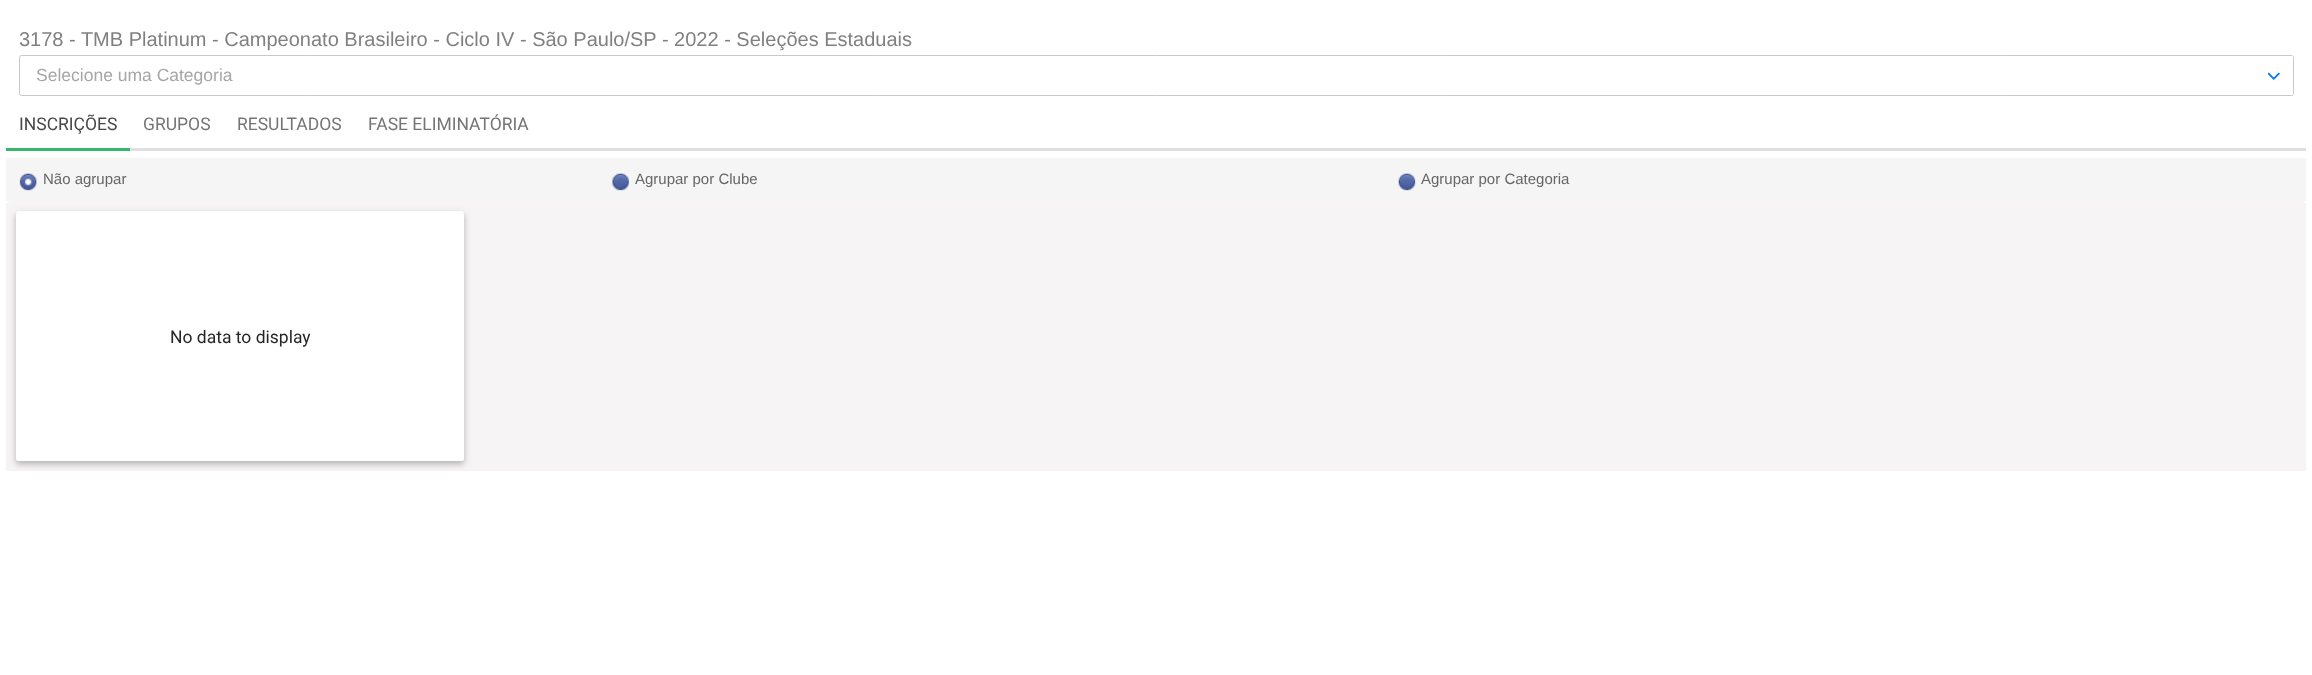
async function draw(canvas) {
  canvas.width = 2312;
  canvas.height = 675;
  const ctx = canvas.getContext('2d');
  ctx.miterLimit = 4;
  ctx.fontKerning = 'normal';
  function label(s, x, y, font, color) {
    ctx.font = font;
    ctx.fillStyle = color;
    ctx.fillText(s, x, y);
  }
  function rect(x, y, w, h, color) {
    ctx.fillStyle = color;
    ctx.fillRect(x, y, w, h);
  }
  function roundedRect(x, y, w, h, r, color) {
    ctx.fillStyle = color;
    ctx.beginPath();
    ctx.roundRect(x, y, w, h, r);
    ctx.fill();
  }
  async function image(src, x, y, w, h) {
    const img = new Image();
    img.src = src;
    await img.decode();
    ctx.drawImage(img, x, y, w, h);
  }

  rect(0, 0, 2312, 675, '#fff');
  label('3178 - TMB Platinum - Campeonato Brasileiro - Ciclo IV - São Paulo/SP - 2022 - Seleções Estaduais', 19, 46, '20px Liberation Sans', '#808080');
  ctx.beginPath();
  ctx.roundRect(19.5, 55.5, 2274, 40, 2);
  ctx.strokeStyle = '#c8c8cd';
  ctx.stroke();
  label('Selecione uma Categoria', 36, 81, '17.5px Liberation Sans', '#a6a6a6');
  rect(2292, 56, 1, 39, '#fff');
  await image('assets/img1.png', 2268, 72, 12, 8);
  rect(6, 148, 124, 3, '#35b86b');
  label('INSCRIÇÕES', 19, 130, '17.5px Roboto', '#484848');
  label('GRUPOS', 143, 130, '17.5px Roboto', '#757575');
  label('RESULTADOS', 237, 130, '17.5px Roboto', '#757575');
  label('FASE ELIMINATÓRIA', 368, 130, '17.5px Roboto', '#757575');
  rect(130, 148, 2175, 3, '#dfdfdf');
  rect(2305, 148, 1, 3, '#dfdfdf');
  rect(6, 158, 2300, 43, '#f5f5f5');
  await image('assets/img2.png', 19, 173, 18, 18);
  label('Não agrupar', 43, 184, '15px Liberation Sans', '#666');
  await image('assets/img3.png', 612, 173, 17, 18);
  label('Agrupar por Clube', 635, 184, '15px Liberation Sans', '#666');
  await image('assets/img4.png', 1398, 173, 18, 18);
  label('Agrupar por Categoria', 1421, 184, '15px Liberation Sans', '#666');
  ctx.fillStyle = '#f6f4f4';
  ctx.beginPath();
  ctx.roundRect(6, 201, 2300, 270, [5, 5, 0, 0]);
  ctx.fill();
  ctx.fillStyle = '#0000001f';
  ctx.filter = 'blur(5px)';
  ctx.beginPath();
  ctx.roundRect(16, 214, 448, 250, 2.5);
  ctx.fill();
  ctx.filter = 'none';
  ctx.fillStyle = '#00000029';
  ctx.filter = 'blur(2.5px)';
  ctx.beginPath();
  ctx.roundRect(16, 214, 448, 250, 2.5);
  ctx.fill();
  ctx.filter = 'none';
  roundedRect(16, 211, 448, 250, 2.5, '#fff');
  label('No data to display', 170, 343, '17.5px Roboto', '#262626');
}

draw(document.querySelector('canvas'));
